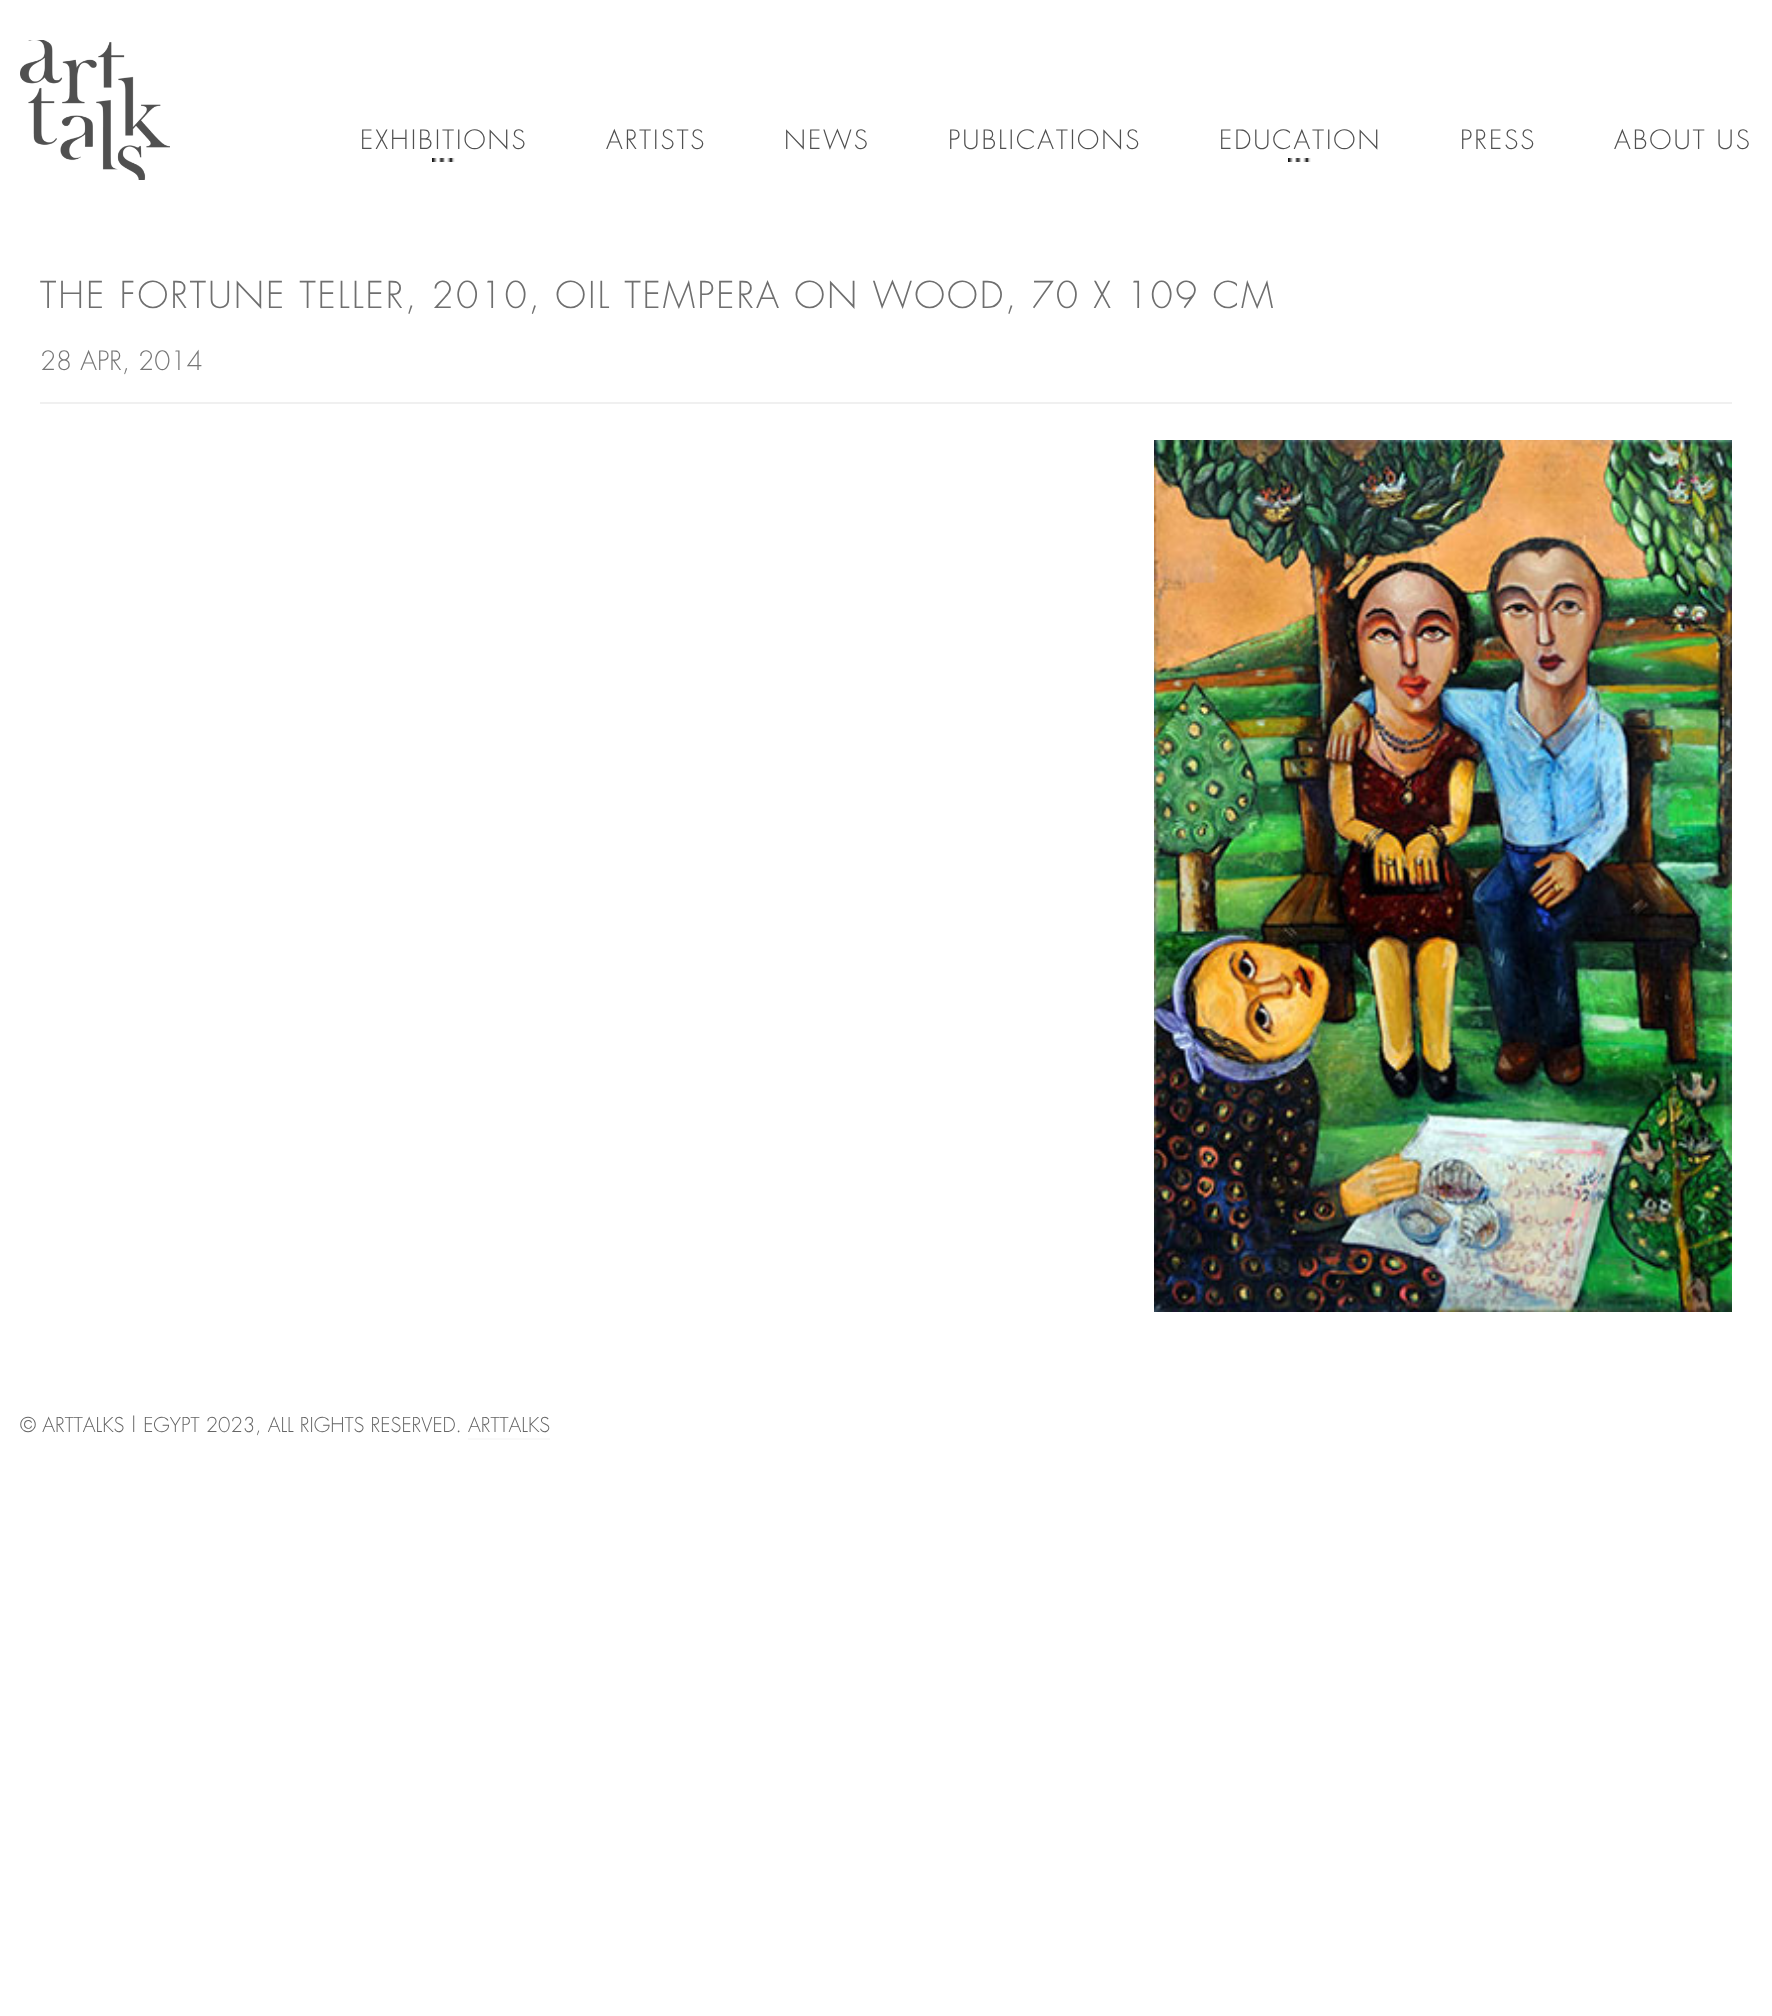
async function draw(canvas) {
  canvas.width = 1772;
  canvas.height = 2016;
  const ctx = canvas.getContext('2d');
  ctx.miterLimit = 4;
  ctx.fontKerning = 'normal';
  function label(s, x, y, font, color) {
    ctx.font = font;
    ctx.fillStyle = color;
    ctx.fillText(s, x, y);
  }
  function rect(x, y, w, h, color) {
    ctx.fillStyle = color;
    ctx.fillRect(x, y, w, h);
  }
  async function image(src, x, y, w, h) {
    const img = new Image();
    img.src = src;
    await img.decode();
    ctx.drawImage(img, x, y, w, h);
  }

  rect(0, 0, 1772, 2016, '#fff');
  await image('assets/img1.png', 20, 40, 150, 140);
  ctx.letterSpacing = '2px';
  label('EXHIBITIONS', 360, 149, '300 26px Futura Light', '#505050');
  await image('assets/img2.png', 432, 158, 23, 4);
  label('ARTISTS', 606, 149, '300 26px Futura Light', '#505050');
  label('NEWS', 784, 149, '300 26px Futura Light', '#505050');
  label('PUBLICATIONS', 948, 149, '300 26px Futura Light', '#505050');
  label('EDUCATION', 1219, 149, '300 26px Futura Light', '#505050');
  await image('assets/img2.png', 1288, 158, 23, 4);
  label('PRESS', 1460, 149, '300 26px Futura Light', '#505050');
  label('ABOUT US', 1614, 149, '300 26px Futura Light', '#505050');
  label('THE FORTUNE TELLER, 2010, OIL TEMPERA ON WOOD, 70 X 109 CM', 40, 308, '300 36px Futura Light', '#6f6f6f');
  rect(40, 402, 1692, 2, '#f0f0f0');
  ctx.letterSpacing = '0px';
  label('28 APR, 2014', 40, 370, '300 26px Futura Light', '#777');
  await image('assets/img3.png', 1154, 440, 578, 872);
  label('© ARTTALKS | EGYPT 2023, ALL RIGHTS RESERVED. ARTTALKS', 20, 1432, '300 20px Futura Light', '#656565');
  rect(468, 1438, 82, 2, '#f9f9f9');
}

draw(document.querySelector('canvas'));
